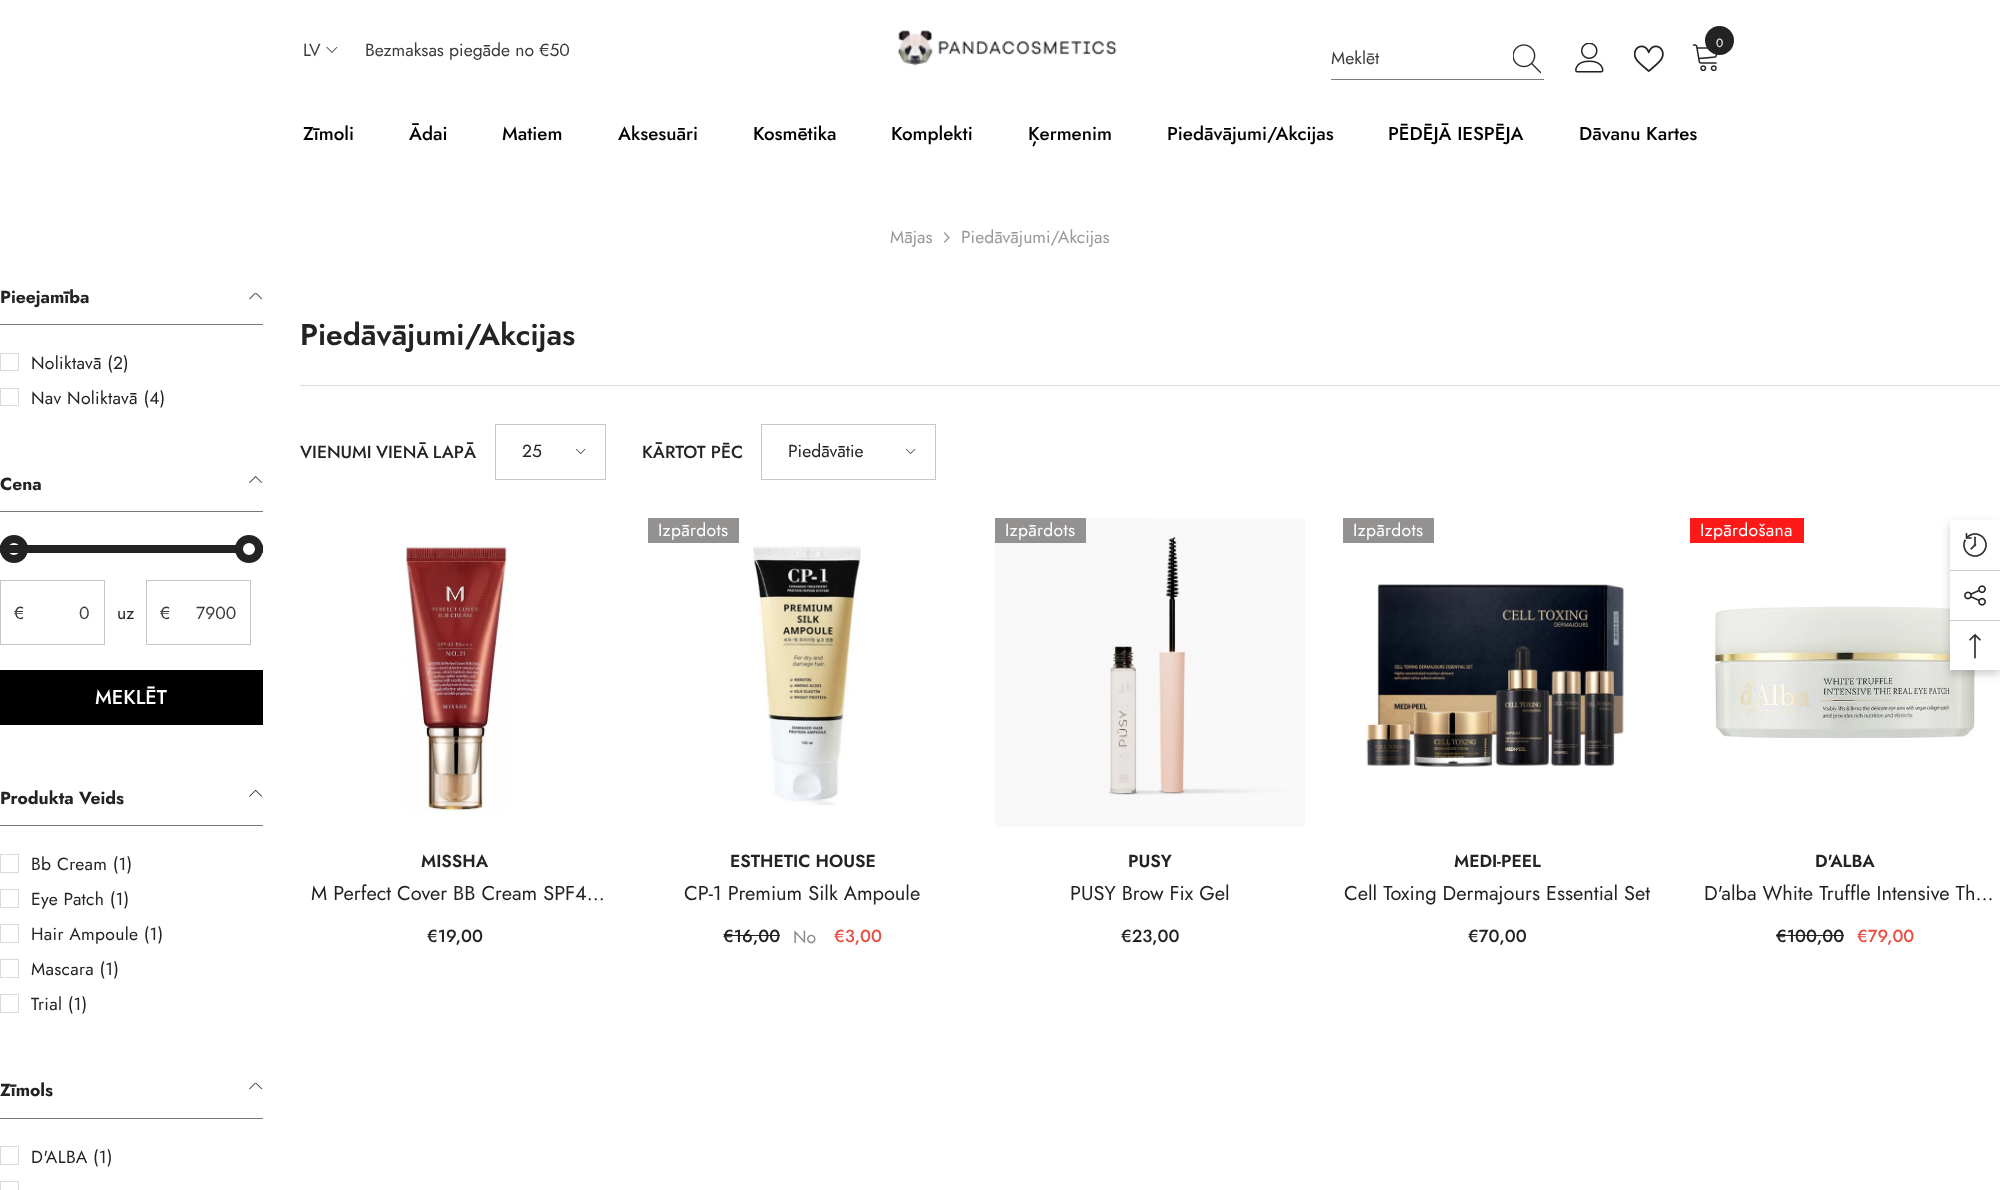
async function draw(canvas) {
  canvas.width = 2000;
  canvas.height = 1190;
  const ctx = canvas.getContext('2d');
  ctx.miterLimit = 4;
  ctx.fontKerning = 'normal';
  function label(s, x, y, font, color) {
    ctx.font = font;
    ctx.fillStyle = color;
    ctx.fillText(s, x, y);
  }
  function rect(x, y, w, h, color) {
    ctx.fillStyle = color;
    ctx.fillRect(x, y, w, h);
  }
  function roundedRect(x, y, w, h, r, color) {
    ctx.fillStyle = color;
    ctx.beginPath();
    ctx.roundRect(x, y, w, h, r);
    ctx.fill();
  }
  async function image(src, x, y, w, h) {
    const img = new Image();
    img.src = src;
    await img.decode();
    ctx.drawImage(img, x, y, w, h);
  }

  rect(0, 0, 2000, 1190, '#fff');
  label('LV', 303, 56, '17.5px Jost', '#3c3c3c');
  await image('assets/img1.png', 326, 47, 12, 6);
  label('Bezmaksas piegāde no €50', 365, 56, '17.5px Jost', '#3c3c3c');
  await image('assets/img2.png', 897, 30, 220, 36);
  await image('assets/img3.png', 1575, 43, 29, 30);
  await image('assets/img4.png', 1634, 45, 30, 27);
  await image('assets/img5.png', 1692, 44, 26, 27);
  ctx.fillStyle = '#232323';
  ctx.beginPath();
  ctx.arc(1719.5, 40.5, 14.5, 0, 2 * Math.PI);
  ctx.fill();
  label('0', 1716, 47, '12px Jost', '#fff');
  rect(1331, 79, 213, 1, '#7b7b7b');
  label('Meklēt', 1331, 64, '17.5px Jost', '#3c3c3c');
  await image('assets/img6.png', 1513, 44, 28, 30);
  label('Zīmoli', 303, 140, '500 18.75px Jost', '#000');
  label('Ādai', 409, 140, '500 18.75px Jost', '#000');
  label('Matiem', 502, 140, '500 18.75px Jost', '#000');
  label('Aksesuāri', 618, 140, '500 18.75px Jost', '#000');
  label('Kosmētika', 753, 140, '500 18.75px Jost', '#000');
  label('Komplekti', 891, 140, '500 18.75px Jost', '#000');
  label('Ķermenim', 1028, 140, '500 18.75px Jost', '#000');
  label('Piedāvājumi/Akcijas', 1167, 140, '500 18.75px Jost', '#000');
  label('PĒDĒJĀ IESPĒJA', 1388, 140, '500 18.75px Jost', '#000');
  label('Dāvanu Kartes', 1579, 140, '500 18.75px Jost', '#000');
  label('Mājas', 890, 243, '17.5px Jost', '#999');
  await image('assets/img7.png', 944, 232, 6, 11);
  label('Piedāvājumi/Akcijas', 961, 243, '17.5px Jost', '#999');
  rect(0, 324, 263, 1, '#787878');
  label('Pieejamība', 0, 303, 'bold 17.5px Jost', '#232323');
  await image('assets/img8.png', 249, 293, 14, 7);
  ctx.strokeStyle = '#dbdbdb';
  ctx.strokeRect(0.5, 353.5, 18, 17);
  ctx.letterSpacing = '0.3px';
  label('Noliktavā (2)', 31, 369, '17.5px Jost', '#232323');
  ctx.strokeRect(0.5, 388.5, 18, 17);
  label('Nav Noliktavā (4)', 31, 404, '17.5px Jost', '#232323');
  rect(0, 511, 263, 1, '#787878');
  ctx.letterSpacing = '0px';
  label('Cena', 0, 490, 'bold 17.5px Jost', '#232323');
  await image('assets/img9.png', 249, 476, 14, 7);
  ctx.beginPath();
  ctx.arc(14, 549, 10, 0, 2 * Math.PI);
  ctx.strokeStyle = '#232323';
  ctx.lineWidth = 8;
  ctx.stroke();
  roundedRect(0, 545, 263, 8, 1, '#232323');
  ctx.fillStyle = '#fff';
  ctx.beginPath();
  ctx.arc(249, 549, 10, 0, 2 * Math.PI);
  ctx.fill();
  ctx.stroke();
  ctx.strokeStyle = '#c7c7c7';
  ctx.lineWidth = 1;
  ctx.strokeRect(0.5, 580.5, 104, 64);
  label('€', 14, 619, '17.5px Jost', '#3c3c3c');
  label('0', 79, 619, '17.5px Jost', '#3c3c3c');
  label('uz', 117, 619, '17.5px Jost', '#232323');
  ctx.strokeRect(146.5, 580.5, 104, 64);
  label('€', 160, 619, '17.5px Jost', '#3c3c3c');
  label('7900', 196, 619, '17.5px Jost', '#3c3c3c');
  rect(0, 670, 263, 55, '#000');
  label('MEKLĒT', 95, 704, '500 20px Jost', '#fff');
  rect(0, 825, 263, 1, '#787878');
  label('Produkta Veids', 0, 804, 'bold 17.5px Jost', '#232323');
  await image('assets/img10.png', 249, 790, 14, 7);
  ctx.strokeStyle = '#dbdbdb';
  ctx.strokeRect(0.5, 854.5, 18, 18);
  ctx.letterSpacing = '0.3px';
  label('Bb Cream (1)', 31, 870, '17.5px Jost', '#232323');
  ctx.strokeRect(0.5, 889.5, 18, 18);
  label('Eye Patch (1)', 31, 905, '17.5px Jost', '#232323');
  ctx.strokeRect(0.5, 924.5, 18, 18);
  label('Hair Ampoule (1)', 31, 940, '17.5px Jost', '#232323');
  ctx.strokeRect(0.5, 959.5, 18, 18);
  label('Mascara (1)', 31, 975, '17.5px Jost', '#232323');
  ctx.strokeRect(0.5, 994.5, 18, 18);
  label('Trial (1)', 31, 1010, '17.5px Jost', '#232323');
  rect(0, 1118, 263, 1, '#787878');
  ctx.letterSpacing = '0px';
  label('Zīmols', 0, 1096, 'bold 17.5px Jost', '#232323');
  await image('assets/img8.png', 249, 1083, 14, 7);
  ctx.strokeRect(0.5, 1146.5, 18, 18);
  ctx.letterSpacing = '0.3px';
  label('D\'ALBA (1)', 31, 1163, '17.5px Jost', '#232323');
  ctx.strokeRect(0.5, 1181.5, 18, 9);
  ctx.letterSpacing = '0px';
  label('Piedāvājumi/Akcijas', 300, 345, '600 30px Jost', '#232323');
  rect(300, 385, 1700, 1, '#dedede');
  ctx.wordSpacing = '-1px';
  label('VIENUMI VIENĀ LAPĀ', 300, 458, '500 17.5px Jost', '#232323');
  ctx.strokeStyle = '#c7c7c7';
  ctx.strokeRect(495.5, 424.5, 110, 55);
  ctx.wordSpacing = '0px';
  label('25', 522, 457, '17.5px Jost', '#232323');
  await image('assets/img11.png', 575, 449, 11, 5);
  label('KĀRTOT PĒC', 642, 458, '500 17.5px Jost', '#232323');
  ctx.strokeRect(761.5, 424.5, 174, 55);
  label('Piedāvātie', 788, 457, '17.5px Jost', '#232323');
  await image('assets/img11.png', 905, 449, 11, 5);
  await image('assets/img12.png', 405, 546, 102, 268);
  label('MISSHA', 421, 867, '600 17.5px Jost', '#232323');
  label('M Perfect Cover BB Cream SPF4…', 311, 900, '20px Jost', '#232323');
  label('€19,00', 427, 942, '500 17.5px Jost', '#232323');
  rect(648, 518, 91, 25, '#949191');
  ctx.letterSpacing = '0.3px';
  label('Izpārdots', 658, 536, '17.5px Jost', '#fff');
  await image('assets/img13.png', 753, 546, 108, 260);
  ctx.letterSpacing = '0px';
  label('ESTHETIC HOUSE', 730, 867, '600 17.5px Jost', '#232323');
  label('CP-1 Premium Silk Ampoule', 684, 900, '20px Jost', '#232323');
  label('€16,00', 723, 942, '500 17.5px Jost', '#232323');
  rect(724, 935, 56, 1, '#232323');
  label('No', 793, 943, '17.5px Jost', '#8c8c8c');
  label('€3,00', 834, 942, '500 17.5px Jost', '#e95144');
  await image('assets/img14.png', 995, 518, 310, 309);
  rect(995, 518, 91, 25, '#949191');
  ctx.letterSpacing = '0.3px';
  label('Izpārdots', 1005, 536, '17.5px Jost', '#fff');
  ctx.letterSpacing = '0px';
  label('PUSY', 1128, 867, '600 17.5px Jost', '#232323');
  label('PUSY Brow Fix Gel', 1070, 900, '20px Jost', '#232323');
  label('€23,00', 1121, 942, '500 17.5px Jost', '#232323');
  rect(1343, 518, 91, 25, '#949191');
  ctx.letterSpacing = '0.3px';
  label('Izpārdots', 1353, 536, '17.5px Jost', '#fff');
  await image('assets/img15.png', 1366, 584, 258, 183);
  ctx.letterSpacing = '0px';
  label('MEDI-PEEL', 1454, 867, '600 17.5px Jost', '#232323');
  label('Cell Toxing Dermajours Essential Set', 1344, 900, '20px Jost', '#232323');
  label('€70,00', 1468, 942, '500 17.5px Jost', '#232323');
  rect(1690, 518, 114, 25, '#fe1919');
  ctx.letterSpacing = '0.3px';
  label('Izpārdošana', 1700, 536, '17.5px Jost', '#fff');
  await image('assets/img16.png', 1714, 606, 263, 135);
  ctx.letterSpacing = '0px';
  label('D\'ALBA', 1815, 867, '600 17.5px Jost', '#232323');
  label('D\'alba White Truffle Intensive Th…', 1704, 900, '20px Jost', '#232323');
  label('€100,00', 1776, 942, '500 17.5px Jost', '#232323');
  rect(1776, 935, 68, 1, '#232323');
  label('€79,00', 1857, 942, '500 17.5px Jost', '#e95144');
  ctx.fillStyle = '#00000033';
  ctx.filter = 'blur(4.5px)';
  ctx.beginPath();
  ctx.rect(1950, 524, 50, 150);
  ctx.fill();
  ctx.filter = 'none';
  rect(1950, 520, 50, 150, '#fff');
  await image('assets/img17.png', 1963, 533, 24, 24);
  rect(1950, 570, 50, 1, '#ccc');
  await image('assets/img18.png', 1964, 585, 22, 21);
  rect(1950, 620, 50, 1, '#ccc');
  await image('assets/img19.png', 1969, 634, 12, 25);
}

draw(document.querySelector('canvas'));
